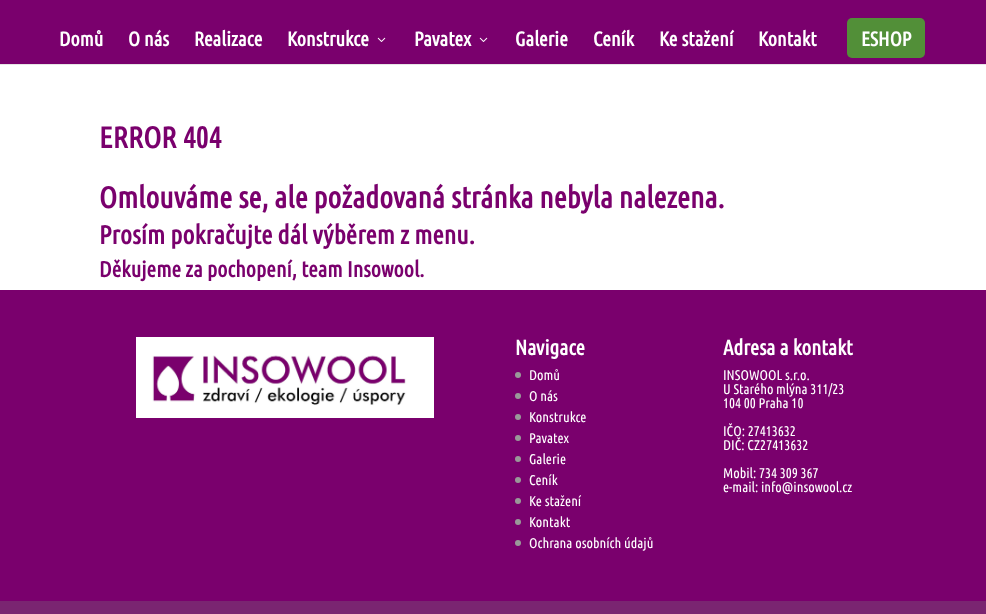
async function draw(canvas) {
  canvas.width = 986;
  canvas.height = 614;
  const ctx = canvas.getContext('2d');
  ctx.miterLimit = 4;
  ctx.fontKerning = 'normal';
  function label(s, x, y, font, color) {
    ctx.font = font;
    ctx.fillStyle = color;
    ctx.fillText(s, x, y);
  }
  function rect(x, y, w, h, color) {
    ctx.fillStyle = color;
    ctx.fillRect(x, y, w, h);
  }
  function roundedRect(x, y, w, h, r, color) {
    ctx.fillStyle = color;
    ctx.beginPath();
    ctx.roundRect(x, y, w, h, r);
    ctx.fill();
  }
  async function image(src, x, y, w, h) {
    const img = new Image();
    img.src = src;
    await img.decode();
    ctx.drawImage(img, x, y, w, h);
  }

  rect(0, 0, 986, 614, '#fff');
  rect(0, 64, 986, 1, '#e6e6e6');
  rect(0, 0, 986, 64, '#7a006d');
  label('Domů', 59, 46, 'bold 20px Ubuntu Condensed', '#fff');
  label('O nás', 128, 46, 'bold 20px Ubuntu Condensed', '#fff');
  label('Realizace', 194, 46, 'bold 20px Ubuntu Condensed', '#fff');
  label('Konstrukce', 287, 46, 'bold 20px Ubuntu Condensed', '#fff');
  await image('assets/img1.png', 377, 37, 9, 5);
  label('Pavatex', 414, 46, 'bold 20px Ubuntu Condensed', '#fff');
  await image('assets/img1.png', 479, 37, 9, 5);
  label('Galerie', 515, 46, 'bold 20px Ubuntu Condensed', '#fff');
  label('Ceník', 593, 46, 'bold 20px Ubuntu Condensed', '#fff');
  label('Ke stažení', 659, 46, 'bold 20px Ubuntu Condensed', '#fff');
  label('Kontakt', 758, 46, 'bold 20px Ubuntu Condensed', '#fff');
  roundedRect(847, 18, 78, 40, 5, '#528f38');
  label('ESHOP', 861, 46, 'bold 20px Ubuntu Condensed', '#fff');
  label('ERROR 404', 99, 148, 'bold 30px Ubuntu Condensed', '#7a006d');
  label('Omlouváme se, ale požadovaná stránka nebyla nalezena.', 99, 208, 'bold 30px Ubuntu Condensed', '#7a006d');
  label('Prosím pokračujte dál výběrem z menu.', 99, 244, 'bold 26px Ubuntu Condensed', '#7a006d');
  label('Děkujeme za pochopení, team Insowool.', 99, 277, 'bold 22px Ubuntu Condensed', '#7a006d');
  rect(0, 290, 986, 311, '#7a006d');
  await image('assets/img2.png', 136, 337, 298, 81);
  label('Navigace', 515, 355, 'bold 21px Ubuntu Condensed', '#fff');
  ctx.fillStyle = '#999';
  ctx.beginPath();
  ctx.arc(518, 375, 3, 0, 2 * Math.PI);
  ctx.fill();
  label('Domů', 529, 380, '14px Ubuntu Condensed', '#fff');
  ctx.fillStyle = '#999';
  ctx.beginPath();
  ctx.arc(518, 396, 3, 0, 2 * Math.PI);
  ctx.fill();
  label('O nás', 529, 401, '14px Ubuntu Condensed', '#fff');
  ctx.fillStyle = '#999';
  ctx.beginPath();
  ctx.arc(518, 417, 3, 0, 2 * Math.PI);
  ctx.fill();
  label('Konstrukce', 529, 422, '14px Ubuntu Condensed', '#fff');
  ctx.fillStyle = '#999';
  ctx.beginPath();
  ctx.arc(518, 438, 3, 0, 2 * Math.PI);
  ctx.fill();
  label('Pavatex', 529, 443, '14px Ubuntu Condensed', '#fff');
  ctx.fillStyle = '#999';
  ctx.beginPath();
  ctx.arc(518, 459, 3, 0, 2 * Math.PI);
  ctx.fill();
  label('Galerie', 529, 464, '14px Ubuntu Condensed', '#fff');
  ctx.fillStyle = '#999';
  ctx.beginPath();
  ctx.arc(518, 480, 3, 0, 2 * Math.PI);
  ctx.fill();
  label('Ceník', 529, 485, '14px Ubuntu Condensed', '#fff');
  ctx.fillStyle = '#999';
  ctx.beginPath();
  ctx.arc(518, 501, 3, 0, 2 * Math.PI);
  ctx.fill();
  label('Ke stažení', 529, 506, '14px Ubuntu Condensed', '#fff');
  ctx.fillStyle = '#999';
  ctx.beginPath();
  ctx.arc(518, 522, 3, 0, 2 * Math.PI);
  ctx.fill();
  label('Kontakt', 529, 527, '14px Ubuntu Condensed', '#fff');
  ctx.fillStyle = '#999';
  ctx.beginPath();
  ctx.arc(518, 543, 3, 0, 2 * Math.PI);
  ctx.fill();
  label('Ochrana osobních údajů', 529, 548, '14px Ubuntu Condensed', '#fff');
  label('Adresa a kontakt', 723, 355, 'bold 21px Ubuntu Condensed', '#fff');
  label('INSOWOOL s.r.o.', 723, 380, '14px Ubuntu Condensed', '#fff');
  label('U Starého mlýna 311/23', 723, 394, '14px Ubuntu Condensed', '#fff');
  label('104 00 Praha 10', 723, 408, '14px Ubuntu Condensed', '#fff');
  label('IČO: 27413632', 723, 436, '14px Ubuntu Condensed', '#fff');
  label('DIČ: CZ27413632', 723, 450, '14px Ubuntu Condensed', '#fff');
  label('Mobil: 734 309 367', 723, 478, '14px Ubuntu Condensed', '#fff');
  label('e-mail: info@insowool.cz', 723, 492, '14px Ubuntu Condensed', '#fff');
  rect(0, 601, 986, 13, '#7a2571');
}

draw(document.querySelector('canvas'));
